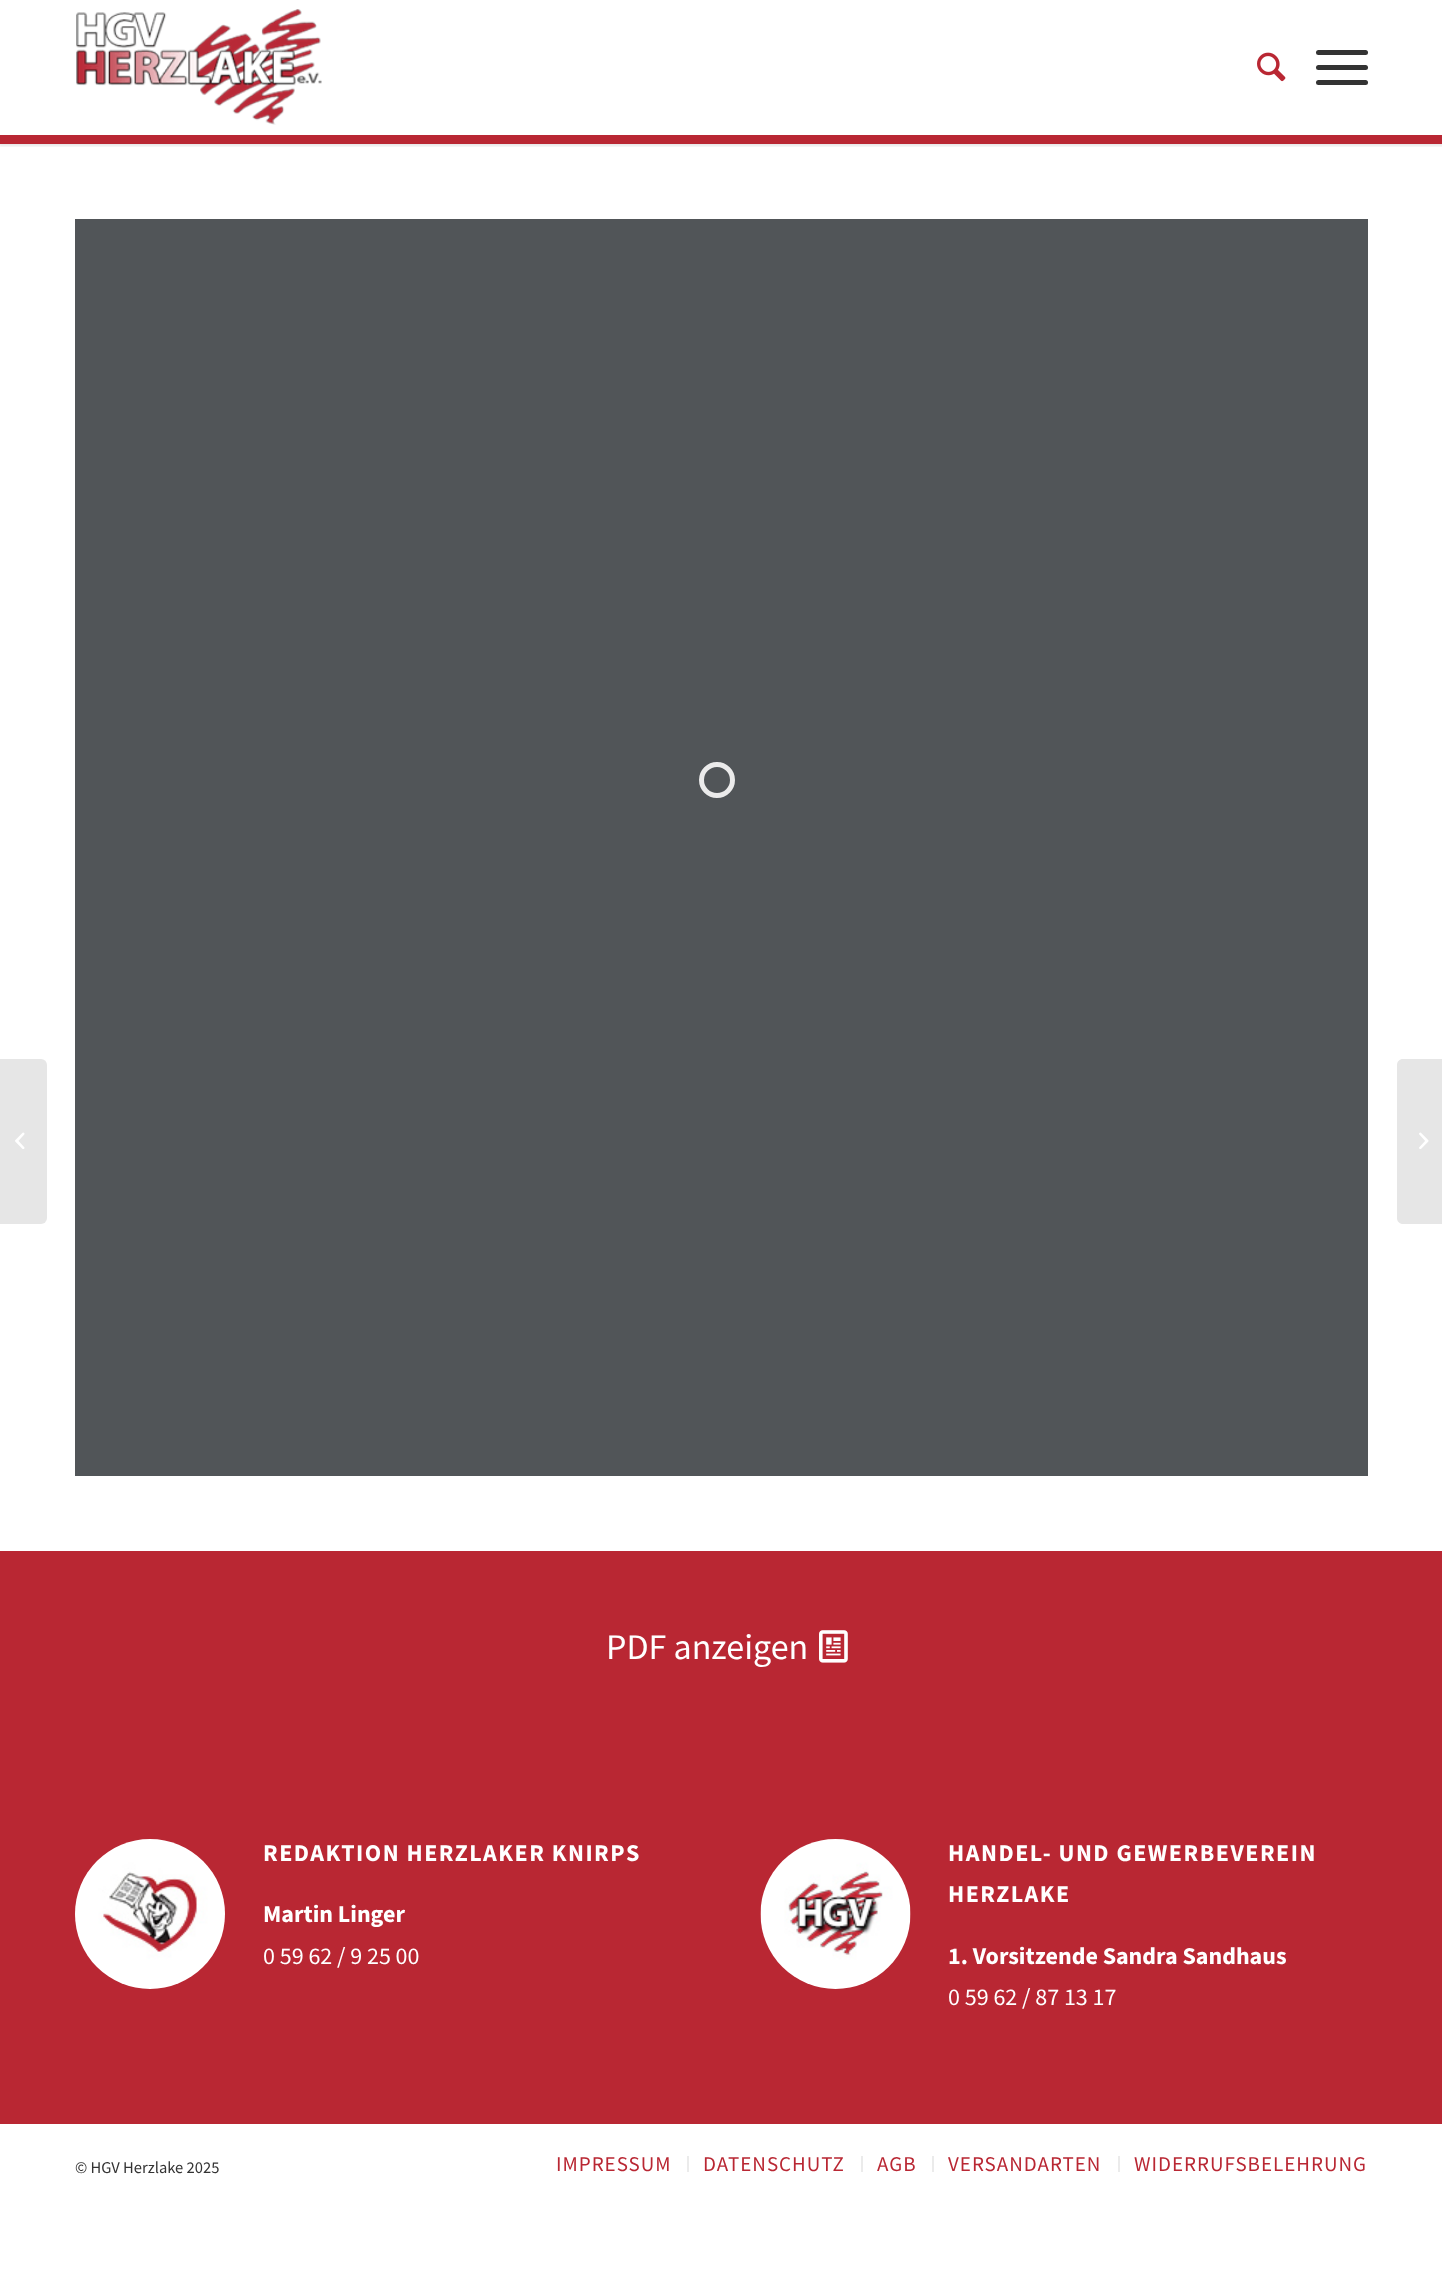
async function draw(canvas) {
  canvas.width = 1442;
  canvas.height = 2282;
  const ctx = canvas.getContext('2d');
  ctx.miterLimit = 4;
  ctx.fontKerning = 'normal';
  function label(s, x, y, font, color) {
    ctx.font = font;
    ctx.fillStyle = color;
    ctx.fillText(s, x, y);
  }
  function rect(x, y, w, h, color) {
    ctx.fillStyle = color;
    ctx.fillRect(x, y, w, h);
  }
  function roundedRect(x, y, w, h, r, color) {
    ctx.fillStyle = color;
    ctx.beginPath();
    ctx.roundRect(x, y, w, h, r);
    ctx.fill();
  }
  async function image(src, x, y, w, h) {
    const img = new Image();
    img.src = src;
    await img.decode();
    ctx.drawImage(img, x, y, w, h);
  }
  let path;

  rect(0, 0, 1442, 2282, '#fff');
  ctx.save();
  ctx.beginPath();
  ctx.rect(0, 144, 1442, 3);
  ctx.clip();
  ctx.fillStyle = '#0000001a';
  ctx.filter = 'blur(1.5px)';
  ctx.beginPath();
  ctx.rect(-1, -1, 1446, 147);
  ctx.fill();
  ctx.filter = 'none';
  ctx.restore();
  rect(0, 135, 1442, 9, '#b92733');
  await image('assets/img1.png', 76, 9, 246, 116);
  await image('assets/img2.png', 1257, 52, 29, 30);
  roundedRect(1316, 65, 52, 5, 2.5, '#333');
  roundedRect(1316, 50, 52, 5, 2.5, '#333');
  roundedRect(1316, 80, 52, 5, 2.5, '#333');
  ctx.fillStyle = '#e6e6e6';
  ctx.beginPath();
  ctx.roundRect(0, 1059, 47, 165, [0, 6, 6, 0]);
  ctx.fill();
  await image('assets/img3.png', 15, 1132, 10, 17);
  path = new Path2D('M1403 1059H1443V1224H1403C1399.5 1224 1397 1221.5 1397 1218V1065C1397 1061.5 1399.5 1059 1403 1059Z');
  ctx.fill(path);
  await image('assets/img4.png', 1419, 1132, 10, 17);
  rect(75, 219, 1293, 1257, '#515558');
  ctx.beginPath();
  ctx.arc(717, 780, 15.5, 0, 2 * Math.PI);
  ctx.strokeStyle = '#ebebeb';
  ctx.lineWidth = 5;
  ctx.stroke();
  rect(0, 1551, 1442, 573, '#b92733');
  label('PDF anzeigen', 606, 1659, '36px Source Sans Pro', '#fff');
  await image('assets/img5.png', 819, 1630, 29, 33);
  await image('assets/img6.png', 75, 1839, 150, 150);
  ctx.letterSpacing = '1.5px';
  label('REDAKTION HERZLAKER KNIRPS', 263, 1861, 'bold 24px "Source Sans 3"', '#fff');
  ctx.letterSpacing = '0px';
  label('Martin Linger', 263, 1922, 'bold 24px "Source Sans 3"', '#fff');
  label('0 59 62 / 9 25 00', 263, 1964, '24px Source Sans Pro', '#fff');
  await image('assets/img7.png', 760, 1839, 151, 150);
  ctx.letterSpacing = '1.5px';
  label('HANDEL- UND GEWERBEVEREIN', 948, 1861, 'bold 24px "Source Sans 3"', '#fff');
  label('HERZLAKE', 948, 1902, 'bold 24px "Source Sans 3"', '#fff');
  ctx.letterSpacing = '0px';
  label('1. Vorsitzende Sandra Sandhaus', 948, 1964, 'bold 24px "Source Sans 3"', '#fff');
  label('0 59 62 / 87 13 17', 948, 2005, '24px Source Sans Pro', '#fff');
  label('© HGV Herzlake 2025', 75, 2173, '16.5px Source Sans Pro', '#333');
  ctx.letterSpacing = '1px';
  label('IMPRESSUM', 556, 2171, '21px Source Sans Pro', '#b92733');
  rect(687, 2156, 2, 16, '#ebebeb');
  label('DATENSCHUTZ', 703, 2171, '21px Source Sans Pro', '#b92733');
  rect(861, 2156, 2, 16, '#ebebeb');
  label('AGB', 877, 2171, '21px Source Sans Pro', '#b92733');
  rect(932, 2156, 2, 16, '#ebebeb');
  label('VERSANDARTEN', 948, 2171, '21px Source Sans Pro', '#b92733');
  rect(1118, 2156, 2, 16, '#ebebeb');
  label('WIDERRUFSBELEHRUNG', 1134, 2171, '21px Source Sans Pro', '#b92733');
}

draw(document.querySelector('canvas'));
